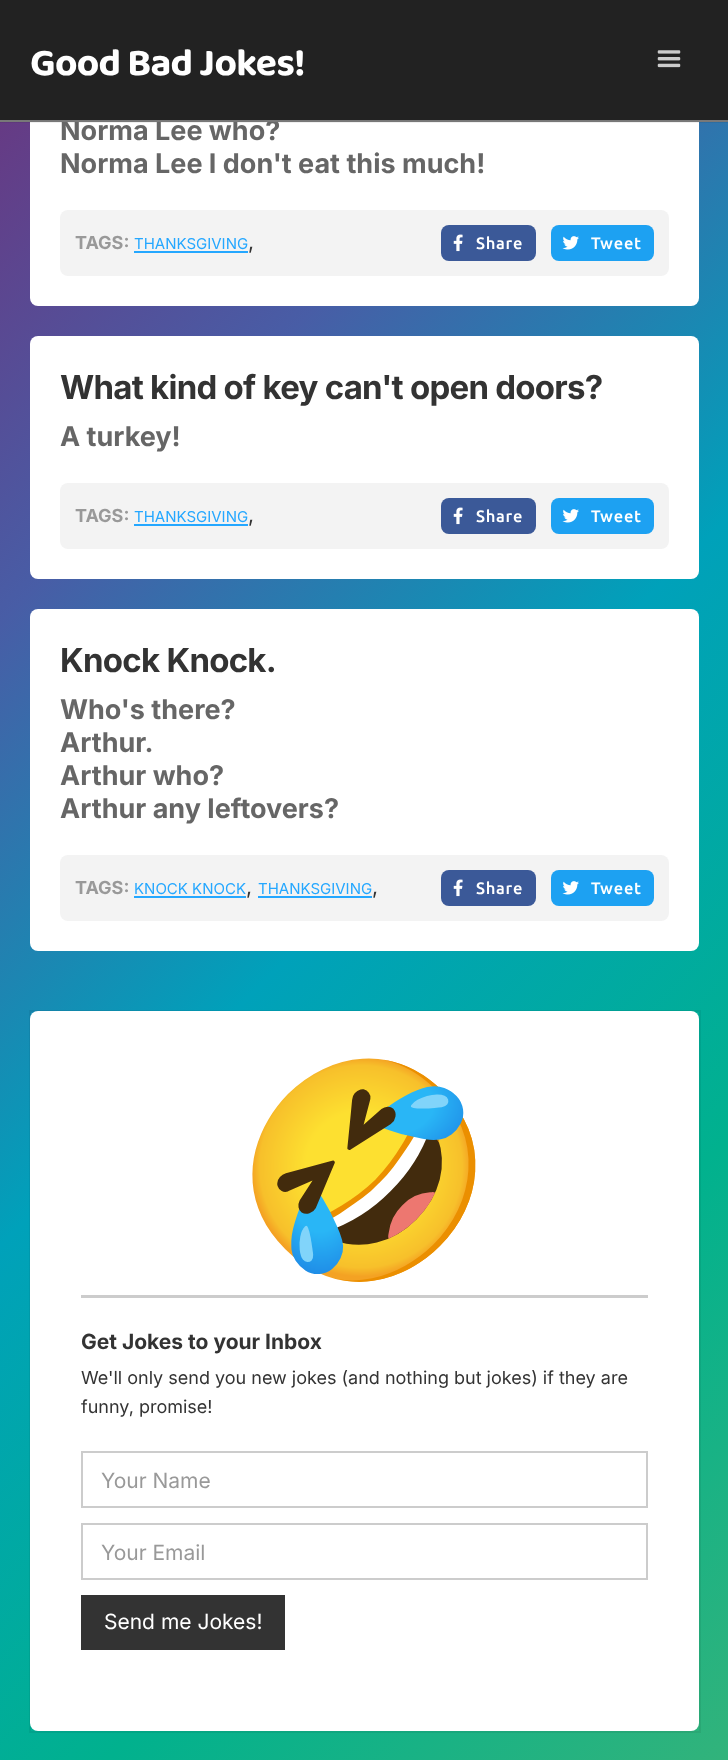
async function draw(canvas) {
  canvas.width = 728;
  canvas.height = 1760;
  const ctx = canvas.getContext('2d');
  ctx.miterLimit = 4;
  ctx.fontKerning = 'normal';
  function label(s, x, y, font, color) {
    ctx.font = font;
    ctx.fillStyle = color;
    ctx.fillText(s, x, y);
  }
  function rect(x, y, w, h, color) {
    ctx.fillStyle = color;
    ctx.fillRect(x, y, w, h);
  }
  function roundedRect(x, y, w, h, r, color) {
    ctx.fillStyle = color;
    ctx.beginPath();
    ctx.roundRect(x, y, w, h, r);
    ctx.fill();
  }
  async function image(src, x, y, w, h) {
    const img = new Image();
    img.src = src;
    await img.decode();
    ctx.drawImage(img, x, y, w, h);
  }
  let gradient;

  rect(0, 0, 728, 1760, '#fff');
  gradient = ctx.createLinearGradient(-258, 258, 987, 1503);
  gradient.addColorStop(0, '#6d327c');
  gradient.addColorStop(0.25, '#485da6');
  gradient.addColorStop(0.5, '#00a1ba');
  gradient.addColorStop(0.75, '#01b18e');
  gradient.addColorStop(1, '#32b37b');
  ctx.fillStyle = gradient;
  ctx.fillRect(0, 122, 728, 1638);
  roundedRect(30, -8, 669, 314, 8, '#fff');
  rect(0, 122, 728, 1, '#0000000f');
  rect(0, 0, 728, 120, '#222');
  label('Norma Lee who?', 60, 140, 'bold 27px Inter', '#666');
  rect(0, 120, 728, 2, '#787878');
  ctx.letterSpacing = '-0.75px';
  label('Good Bad Jokes!', 30, 75, 'bold 39px "Baloo 2"', '#fff');
  await image('assets/img1.png', 657, 50, 24, 18);
  ctx.letterSpacing = '0px';
  label('Norma Lee I don\'t eat this much!', 60, 173, 'bold 27px Inter', '#666');
  roundedRect(60, 210, 609, 66, 8, '#f3f3f3');
  label('TAGS:', 75, 249, 'bold 18px Inter', '#999');
  label('THANKSGIVING', 134, 249, '15px Inter', '#24a7ff');
  label(',', 248, 249, '21px Inter', '#333');
  rect(134, 251, 114, 2, '#24a7ff');
  roundedRect(441, 225, 95, 36, 8, '#3b5998');
  await image('assets/img2.png', 453, 234, 10, 18);
  ctx.letterSpacing = '0.75px';
  label('Share', 476, 249, '500 16.5px Ubuntu', '#fff');
  roundedRect(551, 225, 103, 36, 8, '#1da1f2');
  await image('assets/img3.png', 562, 236, 17, 14);
  label('Tweet', 591, 249, '500 16.5px Ubuntu', '#fff');
  roundedRect(30, 336, 669, 243, 8, '#fff');
  ctx.letterSpacing = '-0.75px';
  label('What kind of key can\'t open doors?', 60, 399, 'bold 33px Inter', '#333');
  ctx.letterSpacing = '0px';
  label('A turkey!', 60, 446, 'bold 27px Inter', '#666');
  roundedRect(60, 483, 609, 66, 8, '#f3f3f3');
  label('TAGS:', 75, 522, 'bold 18px Inter', '#999');
  label('THANKSGIVING', 134, 522, '15px Inter', '#24a7ff');
  label(',', 248, 522, '21px Inter', '#333');
  rect(134, 524, 114, 2, '#24a7ff');
  roundedRect(441, 498, 95, 36, 8, '#3b5998');
  await image('assets/img2.png', 453, 507, 10, 18);
  ctx.letterSpacing = '0.75px';
  label('Share', 476, 522, '500 16.5px Ubuntu', '#fff');
  roundedRect(551, 498, 103, 36, 8, '#1da1f2');
  await image('assets/img3.png', 562, 509, 17, 14);
  label('Tweet', 591, 522, '500 16.5px Ubuntu', '#fff');
  roundedRect(30, 609, 669, 342, 8, '#fff');
  ctx.letterSpacing = '-0.75px';
  label('Knock Knock.', 60, 672, 'bold 33px Inter', '#333');
  ctx.letterSpacing = '0px';
  label('Who\'s there?', 60, 719, 'bold 27px Inter', '#666');
  label('Arthur.', 60, 752, 'bold 27px Inter', '#666');
  label('Arthur who?', 60, 785, 'bold 27px Inter', '#666');
  label('Arthur any leftovers?', 60, 818, 'bold 27px Inter', '#666');
  roundedRect(60, 855, 609, 66, 8, '#f3f3f3');
  label('TAGS:', 75, 894, 'bold 18px Inter', '#999');
  label('KNOCK KNOCK', 134, 894, '15px Inter', '#24a7ff');
  label(',', 246, 894, '21px Inter', '#333');
  rect(134, 896, 112, 2, '#24a7ff');
  label('THANKSGIVING', 258, 894, '15px Inter', '#24a7ff');
  label(',', 372, 894, '21px Inter', '#333');
  rect(258, 896, 114, 2, '#24a7ff');
  roundedRect(441, 870, 95, 36, 8, '#3b5998');
  await image('assets/img2.png', 453, 879, 10, 18);
  ctx.letterSpacing = '0.75px';
  label('Share', 476, 894, '500 16.5px Ubuntu', '#fff');
  roundedRect(551, 870, 103, 36, 8, '#1da1f2');
  await image('assets/img3.png', 562, 881, 17, 14);
  label('Tweet', 591, 894, '500 16.5px Ubuntu', '#fff');
  ctx.strokeStyle = '#0000000f';
  ctx.lineWidth = 2;
  ctx.strokeRect(30, 1011, 670, 721);
  roundedRect(30, 1011, 669, 720, 8, '#fff');
  rect(81, 1295, 567, 3, '#ccc');
  ctx.letterSpacing = '0px';
  label('🤣', 234, 1244, '210px Noto Color Emoji', '#333');
  label('Get Jokes to your Inbox', 81, 1349, 'bold 21px Inter', '#333');
  label('We\'ll only send you new jokes (and nothing but jokes) if they are', 81, 1384, '18px Inter', '#333');
  label('funny, promise!', 81, 1413, '18px Inter', '#333');
  ctx.strokeStyle = '#ccc';
  ctx.strokeRect(82, 1452, 565, 55);
  label('Your Name', 101, 1488, '21px Inter', '#999');
  ctx.strokeRect(82, 1524, 565, 55);
  label('Your Email', 101, 1560, '21px Inter', '#999');
  rect(81, 1595, 204, 55, '#333');
  label('Send me Jokes!', 104, 1629, '21px Inter', '#fff');
}

draw(document.querySelector('canvas'));
